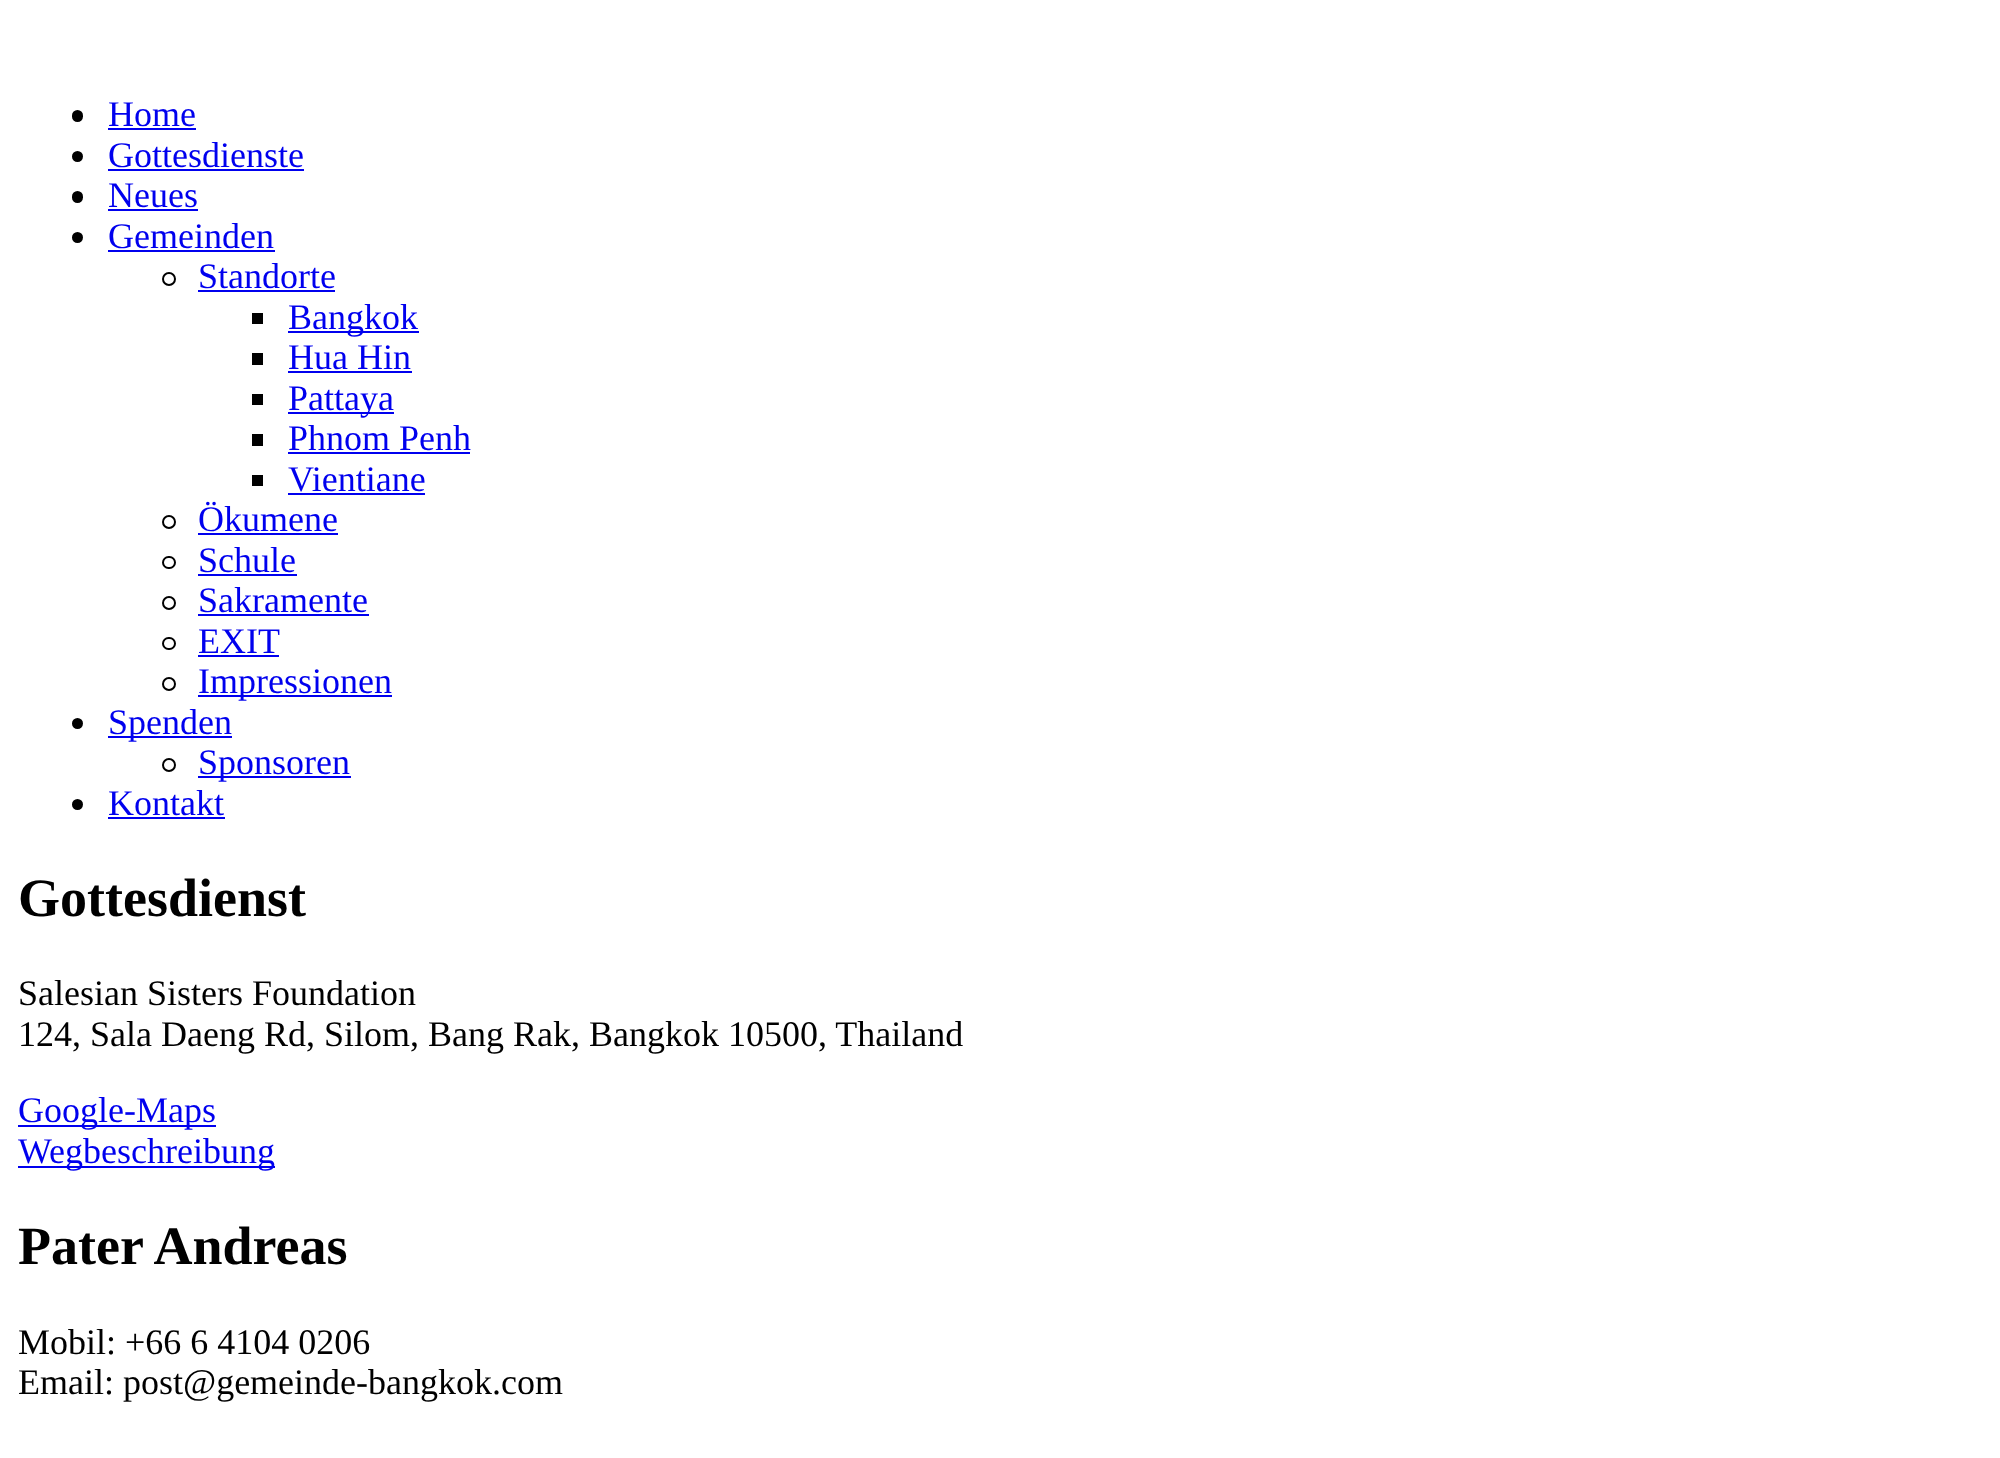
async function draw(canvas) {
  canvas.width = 2000;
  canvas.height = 1458;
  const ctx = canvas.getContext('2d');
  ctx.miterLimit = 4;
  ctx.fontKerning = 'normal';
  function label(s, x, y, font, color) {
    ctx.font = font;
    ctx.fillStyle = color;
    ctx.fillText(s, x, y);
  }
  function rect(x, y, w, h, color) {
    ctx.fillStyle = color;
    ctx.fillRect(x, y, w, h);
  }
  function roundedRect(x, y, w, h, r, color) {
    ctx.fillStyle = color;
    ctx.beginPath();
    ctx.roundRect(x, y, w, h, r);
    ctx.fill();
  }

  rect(0, 0, 2000, 1458, '#fff');
  roundedRect(72, 110, 11, 12, 5.5, '#000');
  label('Home', 108, 126, '36px Liberation Serif', '#00e');
  rect(108, 128, 88, 2, '#00e');
  ctx.fillStyle = '#000';
  ctx.beginPath();
  ctx.arc(77.5, 156.5, 5.5, 0, 2 * Math.PI);
  ctx.fill();
  label('Gottesdienste', 108, 167, '36px Liberation Serif', '#00e');
  rect(108, 169, 196, 2, '#00e');
  roundedRect(72, 191, 11, 12, 5.5, '#000');
  label('Neues', 108, 207, '36px Liberation Serif', '#00e');
  rect(108, 209, 90, 2, '#00e');
  ctx.fillStyle = '#000';
  ctx.beginPath();
  ctx.arc(77.5, 237.5, 5.5, 0, 2 * Math.PI);
  ctx.fill();
  label('Gemeinden', 108, 248, '36px Liberation Serif', '#00e');
  rect(108, 250, 167, 2, '#00e');
  ctx.beginPath();
  ctx.arc(169, 279, 6, 0, 2 * Math.PI);
  ctx.strokeStyle = '#000';
  ctx.lineWidth = 2;
  ctx.stroke();
  label('Standorte', 198, 288, '36px Liberation Serif', '#00e');
  rect(198, 290, 137, 2, '#00e');
  rect(252, 313, 11, 11, '#000');
  rect(288, 331, 131, 2, '#00e');
  label('Bangkok', 288, 329, '36px Liberation Serif', '#00e');
  rect(252, 353, 11, 12, '#000');
  label('Hua Hin', 288, 369, '36px Liberation Serif', '#00e');
  rect(288, 371, 124, 2, '#00e');
  rect(252, 394, 11, 11, '#000');
  rect(288, 412, 106, 2, '#00e');
  label('Pattaya', 288, 410, '36px Liberation Serif', '#00e');
  rect(252, 434, 11, 12, '#000');
  label('Phnom Penh', 288, 450, '36px Liberation Serif', '#00e');
  rect(288, 452, 182, 2, '#00e');
  rect(252, 475, 11, 11, '#000');
  label('Vientiane', 288, 491, '36px Liberation Serif', '#00e');
  rect(288, 493, 137, 2, '#00e');
  ctx.beginPath();
  ctx.arc(169, 522, 6, 0, 2 * Math.PI);
  ctx.stroke();
  label('Ökumene', 198, 531, '36px Liberation Serif', '#00e');
  rect(198, 533, 140, 2, '#00e');
  ctx.beginPath();
  ctx.roundRect(163, 557, 12, 11, 5.5);
  ctx.stroke();
  label('Schule', 198, 572, '36px Liberation Serif', '#00e');
  rect(198, 574, 99, 2, '#00e');
  ctx.beginPath();
  ctx.arc(169, 603, 6, 0, 2 * Math.PI);
  ctx.stroke();
  label('Sakramente', 198, 612, '36px Liberation Serif', '#00e');
  rect(198, 614, 171, 2, '#00e');
  ctx.beginPath();
  ctx.roundRect(163, 638, 12, 11, 5.5);
  ctx.stroke();
  label('EXIT', 198, 653, '36px Liberation Serif', '#00e');
  rect(198, 655, 81, 2, '#00e');
  ctx.beginPath();
  ctx.arc(169, 684, 6, 0, 2 * Math.PI);
  ctx.stroke();
  rect(198, 695, 194, 2, '#00e');
  label('Impressionen', 198, 693, '36px Liberation Serif', '#00e');
  ctx.fillStyle = '#000';
  ctx.beginPath();
  ctx.arc(77.5, 723.5, 5.5, 0, 2 * Math.PI);
  ctx.fill();
  rect(108, 736, 124, 2, '#00e');
  label('Spenden', 108, 734, '36px Liberation Serif', '#00e');
  ctx.beginPath();
  ctx.arc(169, 765, 6, 0, 2 * Math.PI);
  ctx.stroke();
  rect(198, 776, 153, 2, '#00e');
  label('Sponsoren', 198, 774, '36px Liberation Serif', '#00e');
  ctx.fillStyle = '#000';
  ctx.beginPath();
  ctx.arc(77.5, 804.5, 5.5, 0, 2 * Math.PI);
  ctx.fill();
  label('Kontakt', 108, 815, '36px Liberation Serif', '#00e');
  rect(108, 817, 117, 2, '#00e');
  label('Gottesdienst', 18, 916, 'bold 54px Liberation Serif', '#000');
  label('Salesian Sisters Foundation', 18, 1005, '36px Liberation Serif', '#000');
  label('124, Sala Daeng Rd, Silom, Bang Rak, Bangkok 10500, Thailand', 18, 1046, '36px Liberation Serif', '#000');
  rect(18, 1125, 198, 2, '#00e');
  label('Google-Maps', 18, 1122, '36px Liberation Serif', '#00e');
  rect(18, 1166, 257, 2, '#00e');
  label('Wegbeschreibung', 18, 1163, '36px Liberation Serif', '#00e');
  label('Pater Andreas', 18, 1264, 'bold 54px Liberation Serif', '#000');
  label('Mobil: +66 6 4104 0206', 18, 1354, '36px Liberation Serif', '#000');
  label('Email: post@gemeinde-bangkok.com', 18, 1394, '36px Liberation Serif', '#000');
}

draw(document.querySelector('canvas'));
